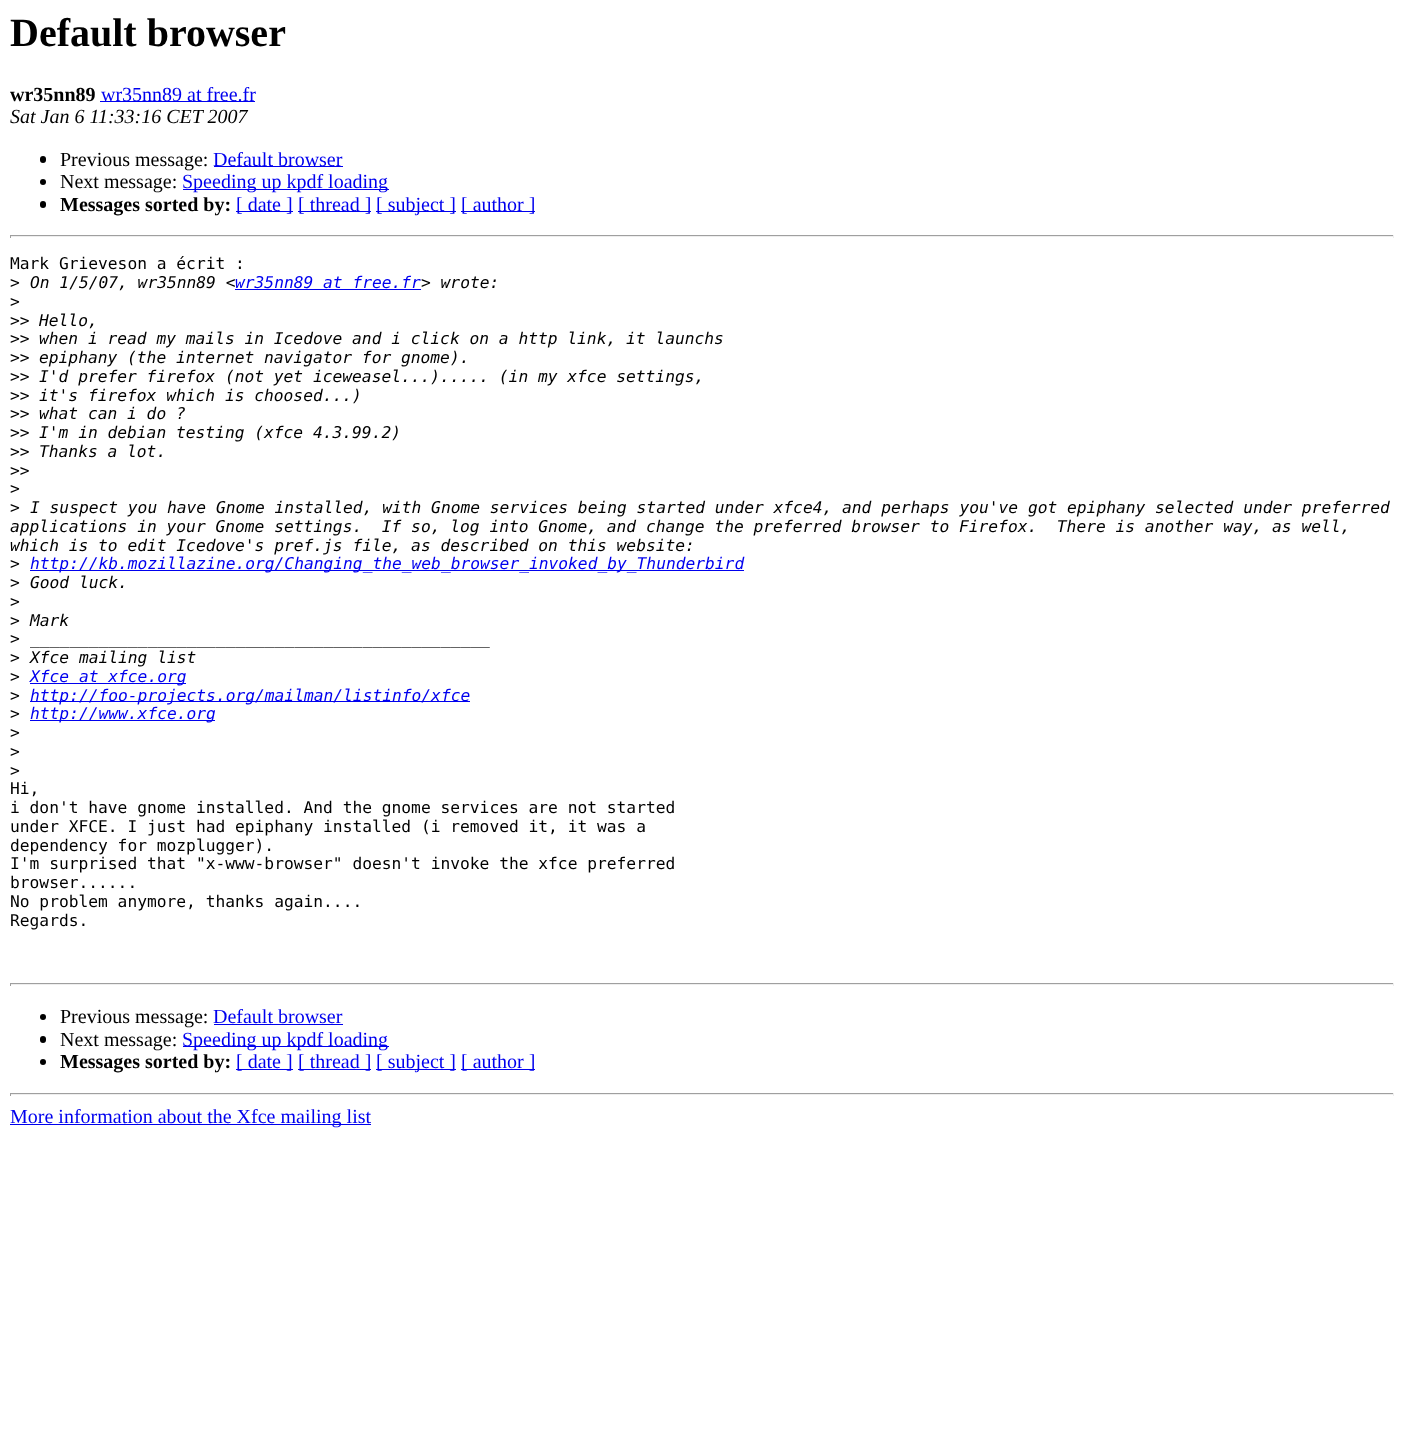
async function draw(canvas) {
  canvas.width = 1403;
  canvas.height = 1454;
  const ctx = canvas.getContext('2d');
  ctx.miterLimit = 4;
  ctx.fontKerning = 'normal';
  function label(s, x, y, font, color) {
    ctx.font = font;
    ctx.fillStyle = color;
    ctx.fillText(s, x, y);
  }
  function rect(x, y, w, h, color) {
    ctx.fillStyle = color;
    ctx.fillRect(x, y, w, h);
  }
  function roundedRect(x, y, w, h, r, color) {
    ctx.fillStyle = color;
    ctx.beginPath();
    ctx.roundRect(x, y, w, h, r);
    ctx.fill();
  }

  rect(0, 0, 1403, 1454, '#fff');
  label('Default browser', 10, 46, 'bold 40px Liberation Serif', '#000');
  label('wr35nn89', 10, 101, 'bold 20px Liberation Serif', '#000');
  rect(100, 101, 155, 1, '#00e');
  label('wr35nn89 at free.fr', 101, 101, '20px Liberation Serif', '#00e');
  label('Sat Jan 6 11:33:16 CET 2007', 10, 123, 'italic 20px Liberation Serif', '#000');
  roundedRect(40, 156, 6, 7, 3, '#000');
  label('Previous message:', 60, 166, '20px Liberation Serif', '#000');
  rect(214, 166, 129, 1, '#00e');
  label('Default browser', 213, 166, '20px Liberation Serif', '#00e');
  ctx.fillStyle = '#000';
  ctx.beginPath();
  ctx.arc(43, 182, 3, 0, 2 * Math.PI);
  ctx.fill();
  label('Next message:', 60, 188, '20px Liberation Serif', '#000');
  rect(183, 189, 206, 1, '#00e');
  label('Speeding up kpdf loading', 182, 188, '20px Liberation Serif', '#00e');
  roundedRect(40, 201, 6, 7, 3, '#000');
  label('Messages sorted by:', 60, 211, 'bold 20px Liberation Serif', '#000');
  rect(236, 211, 57, 1, '#00e');
  label('[ date ]', 236, 211, '20px Liberation Serif', '#00e');
  rect(298, 211, 73, 1, '#00e');
  label('[ thread ]', 298, 211, '20px Liberation Serif', '#00e');
  rect(376, 211, 80, 1, '#00e');
  label('[ subject ]', 376, 211, '20px Liberation Serif', '#00e');
  rect(461, 211, 74, 1, '#00e');
  label('[ author ]', 461, 211, '20px Liberation Serif', '#00e');
  rect(10, 235, 1384, 1, '#9f9f9f');
  rect(1393, 235, 1, 3, '#eee');
  rect(10, 236, 1384, 1, '#eee');
  rect(10, 235, 1, 3, '#9f9f9f');
  label('Mark Grieveson a écrit :', 10, 269, '16.25px DejaVu Sans Mono', '#000');
  label('>', 10, 288, '16.25px DejaVu Sans Mono', '#000');
  label('On 1/5/07, wr35nn89 <', 30, 288, 'italic 16.25px DejaVu Sans Mono', '#000');
  rect(235, 289, 186, 1, '#00e');
  label('wr35nn89 at free.fr', 235, 288, 'italic 16.25px DejaVu Sans Mono', '#00e');
  label('> wrote:', 421, 288, 'italic 16.25px DejaVu Sans Mono', '#000');
  label('>', 10, 307, '16.25px DejaVu Sans Mono', '#000');
  label('>>', 10, 326, '16.25px DejaVu Sans Mono', '#000');
  label('Hello,', 39, 326, 'italic 16.25px DejaVu Sans Mono', '#000');
  label('>>', 10, 344, '16.25px DejaVu Sans Mono', '#000');
  label('when i read my mails in Icedove and i click on a http link, it launchs', 39, 344, 'italic 16.25px DejaVu Sans Mono', '#000');
  label('>>', 10, 363, '16.25px DejaVu Sans Mono', '#000');
  label('epiphany (the internet navigator for gnome).', 39, 363, 'italic 16.25px DejaVu Sans Mono', '#000');
  label('>>', 10, 382, '16.25px DejaVu Sans Mono', '#000');
  label('I\'d prefer firefox (not yet iceweasel...)..... (in my xfce settings,', 39, 382, 'italic 16.25px DejaVu Sans Mono', '#000');
  label('>>', 10, 401, '16.25px DejaVu Sans Mono', '#000');
  label('it\'s firefox which is choosed...)', 39, 401, 'italic 16.25px DejaVu Sans Mono', '#000');
  label('>>', 10, 419, '16.25px DejaVu Sans Mono', '#000');
  label('what can i do ?', 39, 419, 'italic 16.25px DejaVu Sans Mono', '#000');
  label('>>', 10, 438, '16.25px DejaVu Sans Mono', '#000');
  label('I\'m in debian testing (xfce 4.3.99.2)', 39, 438, 'italic 16.25px DejaVu Sans Mono', '#000');
  label('>>', 10, 457, '16.25px DejaVu Sans Mono', '#000');
  label('Thanks a lot.', 39, 457, 'italic 16.25px DejaVu Sans Mono', '#000');
  label('>>', 10, 476, '16.25px DejaVu Sans Mono', '#000');
  label('>', 10, 494, '16.25px DejaVu Sans Mono', '#000');
  label('>', 10, 513, '16.25px DejaVu Sans Mono', '#000');
  label('I suspect you have Gnome installed, with Gnome services being started under xfce4, and perhaps you\'ve got epiphany selected under preferred', 30, 513, 'italic 16.25px DejaVu Sans Mono', '#000');
  label('applications in your Gnome settings.  If so, log into Gnome, and change the preferred browser to Firefox.  There is another way, as well,', 10, 532, 'italic 16.25px DejaVu Sans Mono', '#000');
  label('which is to edit Icedove\'s pref.js file, as described on this website:', 10, 551, 'italic 16.25px DejaVu Sans Mono', '#000');
  label('>', 10, 569, '16.25px DejaVu Sans Mono', '#000');
  rect(30, 570, 714, 1, '#00e');
  label('http://kb.mozillazine.org/Changing_the_web_browser_invoked_by_Thunderbird', 30, 569, 'italic 16.25px DejaVu Sans Mono', '#00e');
  label('>', 10, 588, '16.25px DejaVu Sans Mono', '#000');
  label('Good luck.', 30, 588, 'italic 16.25px DejaVu Sans Mono', '#000');
  label('>', 10, 607, '16.25px DejaVu Sans Mono', '#000');
  label('>', 10, 626, '16.25px DejaVu Sans Mono', '#000');
  label('Mark', 30, 626, 'italic 16.25px DejaVu Sans Mono', '#000');
  label('>', 10, 644, '16.25px DejaVu Sans Mono', '#000');
  label('_______________________________________________', 30, 644, 'italic 16.25px DejaVu Sans Mono', '#000');
  label('>', 10, 663, '16.25px DejaVu Sans Mono', '#000');
  label('Xfce mailing list', 30, 663, 'italic 16.25px DejaVu Sans Mono', '#000');
  label('>', 10, 682, '16.25px DejaVu Sans Mono', '#000');
  rect(30, 683, 156, 1, '#00e');
  label('Xfce at xfce.org', 30, 682, 'italic 16.25px DejaVu Sans Mono', '#00e');
  label('>', 10, 701, '16.25px DejaVu Sans Mono', '#000');
  rect(30, 701, 440, 1, '#00e');
  label('http://foo-projects.org/mailman/listinfo/xfce', 30, 701, 'italic 16.25px DejaVu Sans Mono', '#00e');
  label('>', 10, 719, '16.25px DejaVu Sans Mono', '#000');
  rect(30, 720, 185, 1, '#00e');
  label('http://www.xfce.org', 30, 719, 'italic 16.25px DejaVu Sans Mono', '#00e');
  label('>', 10, 738, '16.25px DejaVu Sans Mono', '#000');
  label('>', 10, 757, '16.25px DejaVu Sans Mono', '#000');
  label('>', 10, 776, '16.25px DejaVu Sans Mono', '#000');
  label('Hi,', 10, 794, '16.25px DejaVu Sans Mono', '#000');
  label('i don\'t have gnome installed. And the gnome services are not started', 10, 813, '16.25px DejaVu Sans Mono', '#000');
  label('under XFCE. I just had epiphany installed (i removed it, it was a', 10, 832, '16.25px DejaVu Sans Mono', '#000');
  label('dependency for mozplugger).', 10, 851, '16.25px DejaVu Sans Mono', '#000');
  label('I\'m surprised that "x-www-browser" doesn\'t invoke the xfce preferred', 10, 869, '16.25px DejaVu Sans Mono', '#000');
  label('browser......', 10, 888, '16.25px DejaVu Sans Mono', '#000');
  label('No problem anymore, thanks again....', 10, 907, '16.25px DejaVu Sans Mono', '#000');
  label('Regards.', 10, 926, '16.25px DejaVu Sans Mono', '#000');
  rect(10, 983, 1384, 1, '#9f9f9f');
  rect(1393, 983, 1, 3, '#eee');
  rect(10, 984, 1384, 1, '#eee');
  rect(10, 983, 1, 3, '#9f9f9f');
  ctx.fillStyle = '#000';
  ctx.beginPath();
  ctx.arc(43, 1017, 3, 0, 2 * Math.PI);
  ctx.fill();
  label('Previous message:', 60, 1023, '20px Liberation Serif', '#000');
  label('Default browser', 213, 1023, '20px Liberation Serif', '#00e');
  rect(214, 1024, 129, 1, '#00e');
  roundedRect(40, 1036, 6, 7, 3, '#000');
  label('Next message:', 60, 1046, '20px Liberation Serif', '#000');
  rect(183, 1046, 206, 1, '#00e');
  label('Speeding up kpdf loading', 182, 1046, '20px Liberation Serif', '#00e');
  ctx.fillStyle = '#000';
  ctx.beginPath();
  ctx.arc(43, 1062, 3, 0, 2 * Math.PI);
  ctx.fill();
  label('Messages sorted by:', 60, 1068, 'bold 20px Liberation Serif', '#000');
  rect(236, 1069, 57, 1, '#00e');
  label('[ date ]', 236, 1068, '20px Liberation Serif', '#00e');
  rect(298, 1069, 73, 1, '#00e');
  label('[ thread ]', 298, 1068, '20px Liberation Serif', '#00e');
  rect(376, 1069, 80, 1, '#00e');
  label('[ subject ]', 376, 1068, '20px Liberation Serif', '#00e');
  rect(461, 1069, 74, 1, '#00e');
  label('[ author ]', 461, 1068, '20px Liberation Serif', '#00e');
  rect(10, 1093, 1384, 1, '#9f9f9f');
  rect(1393, 1093, 1, 3, '#eee');
  rect(10, 1094, 1384, 1, '#eee');
  rect(10, 1093, 1, 3, '#9f9f9f');
  rect(10, 1124, 361, 1, '#00e');
  label('More information about the Xfce mailing list', 10, 1123, '20px Liberation Serif', '#00e');
}

draw(document.querySelector('canvas'));
